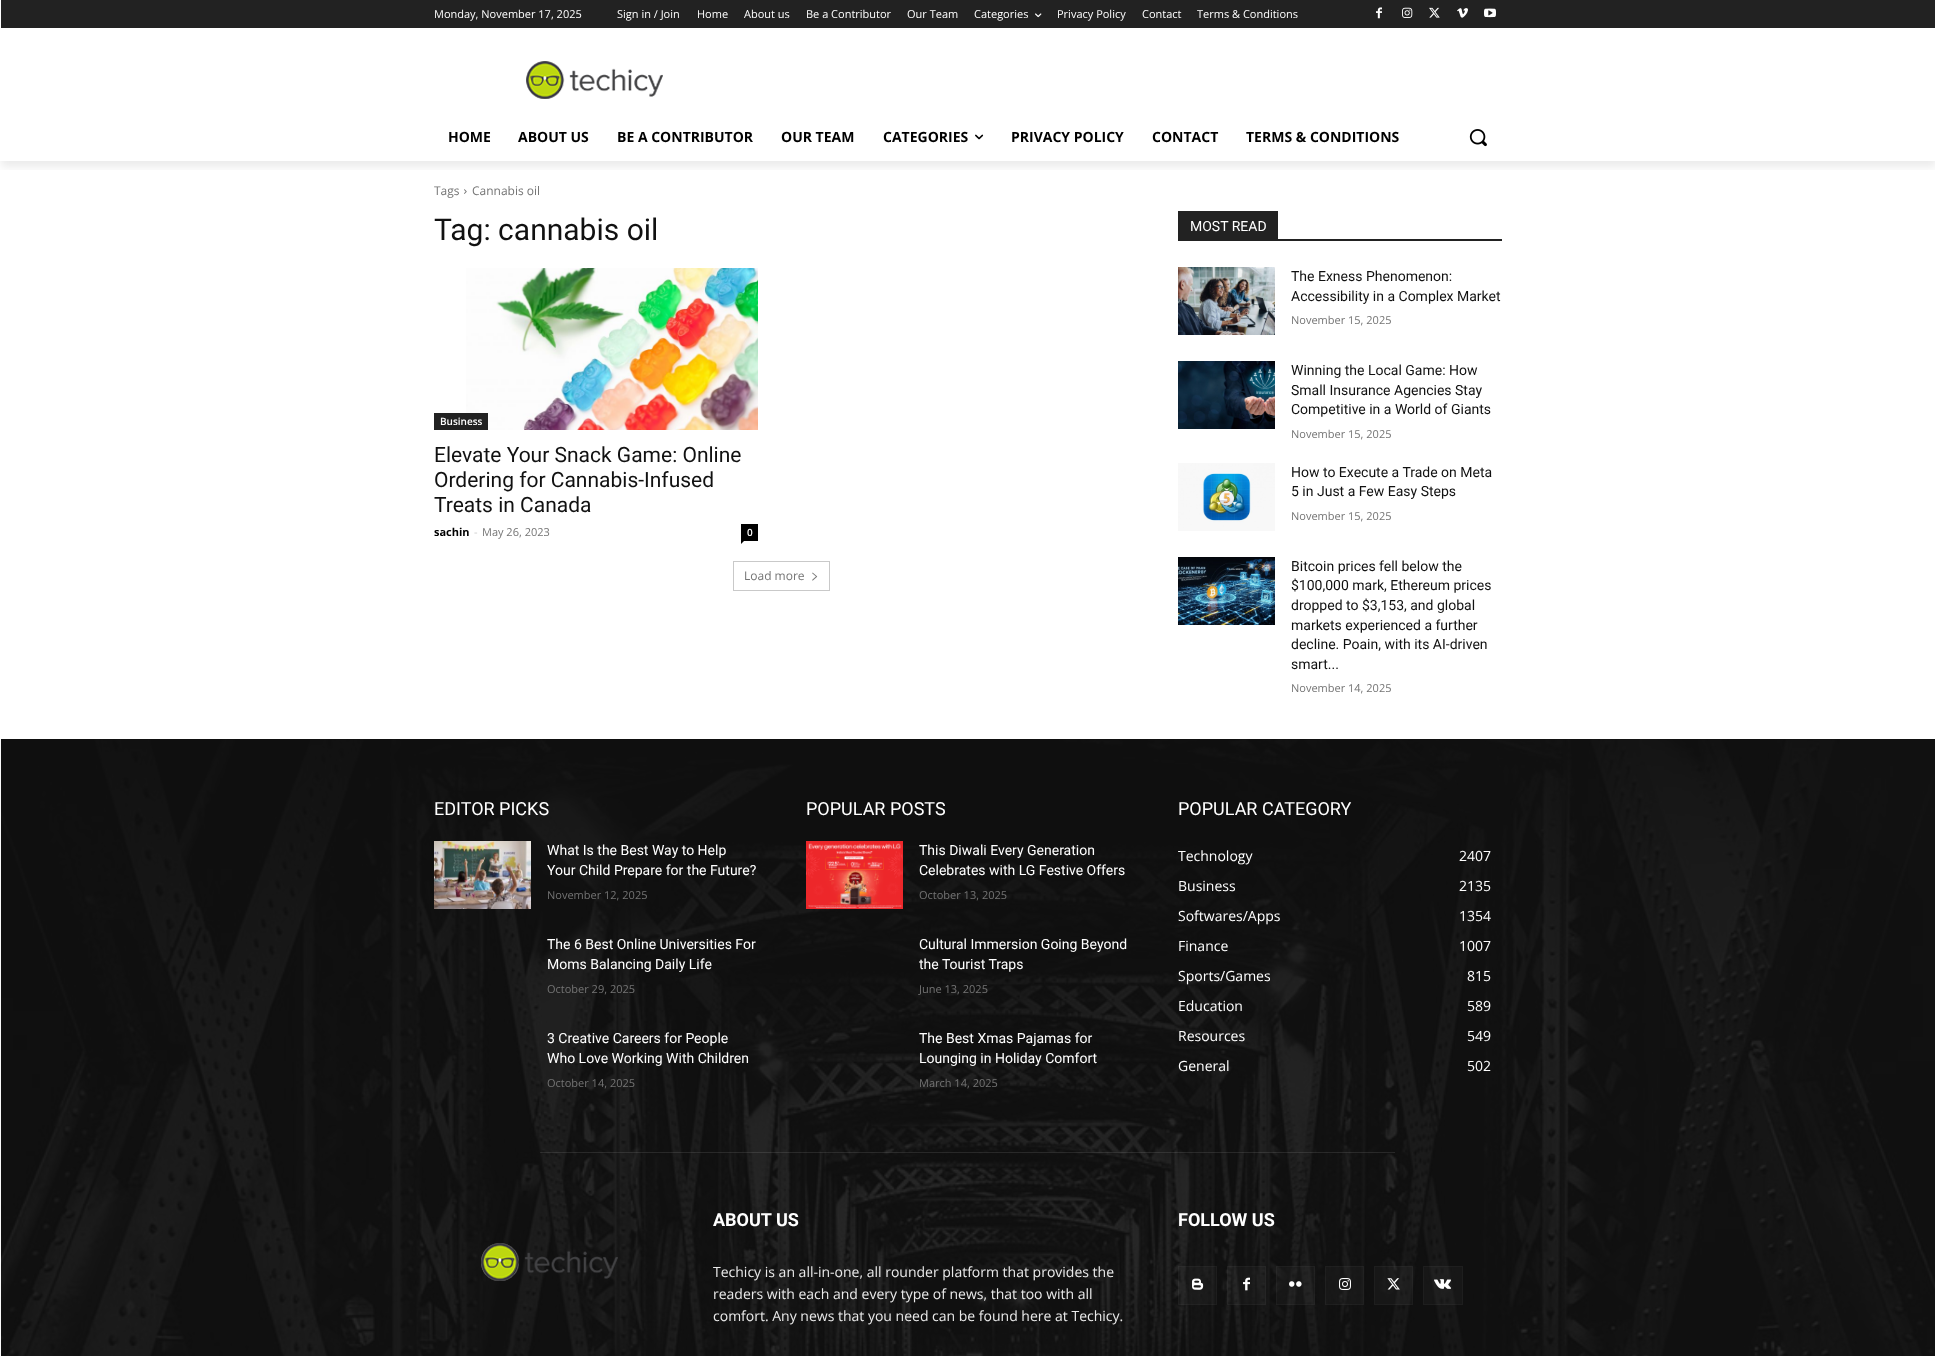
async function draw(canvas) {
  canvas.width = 1935;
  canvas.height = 1356;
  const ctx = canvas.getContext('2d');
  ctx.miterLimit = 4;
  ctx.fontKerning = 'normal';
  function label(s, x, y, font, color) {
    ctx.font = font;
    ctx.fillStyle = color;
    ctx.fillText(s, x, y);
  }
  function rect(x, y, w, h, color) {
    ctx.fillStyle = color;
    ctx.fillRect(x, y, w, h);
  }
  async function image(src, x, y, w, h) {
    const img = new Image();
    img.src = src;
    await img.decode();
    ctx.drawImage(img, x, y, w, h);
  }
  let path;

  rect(0, 0, 1935, 1356, '#fff');
  rect(1, 0, 1934, 28, '#222');
  await image('assets/img2.png', 1376, 7, 6, 12);
  await image('assets/img3.png', 1402, 7, 11, 11);
  await image('assets/img4.png', 1429, 7, 11, 11);
  await image('assets/img5.png', 1457, 8, 11, 10);
  await image('assets/img6.png', 1484, 8, 12, 10);
  await image('assets/img7.png', 526, 61, 137, 38);
  ctx.save();
  ctx.beginPath();
  ctx.rect(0, 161, 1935, 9);
  ctx.clip();
  ctx.fillStyle = '#00000014';
  ctx.filter = 'blur(4px)';
  ctx.beginPath();
  ctx.rect(1, 6, 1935, 161);
  ctx.fill();
  ctx.filter = 'none';
  ctx.restore();
  label('Monday, November 17, 2025', 434, 18, '11px Open Sans', '#fff');
  label('Sign in / Join', 617, 18, '11px Open Sans', '#fff');
  label('Home', 697, 18, '11px Open Sans', '#fff');
  label('About us', 744, 18, '11px Open Sans', '#fff');
  label('Be a Contributor', 806, 18, '11px Open Sans', '#fff');
  label('Our Team', 907, 18, '11px Open Sans', '#fff');
  label('Categories', 974, 18, '11px Open Sans', '#fff');
  await image('assets/img1.png', 1035, 13, 7, 5);
  label('Privacy Policy', 1057, 18, '11px Open Sans', '#fff');
  label('Contact', 1142, 18, '11px Open Sans', '#fff');
  label('Terms & Conditions', 1197, 18, '11px Open Sans', '#fff');
  label('HOME', 448, 142, 'bold 14px Open Sans', '#000');
  label('ABOUT US', 518, 142, 'bold 14px Open Sans', '#000');
  label('BE A CONTRIBUTOR', 617, 142, 'bold 14px Open Sans', '#000');
  label('OUR TEAM', 781, 142, 'bold 14px Open Sans', '#000');
  label('CATEGORIES', 883, 142, 'bold 14px Open Sans', '#000');
  await image('assets/img8.png', 975, 134, 9, 6);
  label('PRIVACY POLICY', 1011, 142, 'bold 14px Open Sans', '#000');
  label('CONTACT', 1152, 142, 'bold 14px Open Sans', '#000');
  label('TERMS & CONDITIONS', 1246, 142, 'bold 14px Open Sans', '#000');
  await image('assets/img9.png', 1469, 129, 18, 18);
  label('Tags', 434, 195, '12px Open Sans', '#747474');
  await image('assets/img10.png', 464, 189, 3, 5);
  label('Cannabis oil', 472, 195, '12px Open Sans', '#747474');
  label('Tag: cannabis oil', 434, 240, '30px Roboto', '#111');
  await image('assets/img11.png', 466, 268, 292, 162);
  rect(434, 413, 54, 17, '#222');
  label('Business', 440, 425, '600 10px Open Sans', '#fff');
  label('Elevate Your Snack Game: Online', 434, 462, '21px Roboto', '#111');
  label('Ordering for Cannabis-Infused', 434, 487, '21px Roboto', '#111');
  label('Treats in Canada', 434, 512, '21px Roboto', '#111');
  label('sachin', 434, 536, 'bold 11px Open Sans', '#000');
  label('-', 474, 536, '11px Open Sans', '#ccc');
  label('May 26, 2023', 482, 536, '11px Open Sans', '#747474');
  rect(741, 524, 17, 17, '#000');
  label('0', 747, 536, '600 10px Open Sans', '#fff');
  ctx.fillStyle = '#000';
  path = new Path2D('M741 541H744L741 544Z');
  ctx.fill(path);
  ctx.strokeStyle = '#c9c9c9';
  ctx.strokeRect(733.5, 561.5, 96, 29);
  label('Load more', 744, 580, '12px Open Sans', '#747474');
  await image('assets/img12.png', 812, 572, 6, 9);
  rect(1178, 239, 324, 2, '#222');
  rect(1178, 211, 100, 28, '#222');
  label('MOST READ', 1190, 231, '14px Roboto', '#fff');
  await image('assets/img13.png', 1178, 267, 97, 68);
  label('The Exness Phenomenon:', 1291, 281, '14px Roboto', '#111');
  label('Accessibility in a Complex Market', 1291, 301, '14px Roboto', '#111');
  label('November 15, 2025', 1291, 324, '11px Open Sans', '#747474');
  await image('assets/img14.png', 1178, 361, 97, 68);
  label('Winning the Local Game: How', 1291, 375, '14px Roboto', '#111');
  label('Small Insurance Agencies Stay', 1291, 395, '14px Roboto', '#111');
  label('Competitive in a World of Giants', 1291, 414, '14px Roboto', '#111');
  label('November 15, 2025', 1291, 438, '11px Open Sans', '#747474');
  await image('assets/img15.png', 1178, 463, 97, 68);
  label('How to Execute a Trade on Meta', 1291, 477, '14px Roboto', '#111');
  label('5 in Just a Few Easy Steps', 1291, 496, '14px Roboto', '#111');
  label('November 15, 2025', 1291, 520, '11px Open Sans', '#747474');
  await image('assets/img16.png', 1178, 557, 97, 68);
  label('Bitcoin prices fell below the', 1291, 571, '14px Roboto', '#111');
  label('$100,000 mark, Ethereum prices', 1291, 590, '14px Roboto', '#111');
  label('dropped to $3,153, and global', 1291, 610, '14px Roboto', '#111');
  label('markets experienced a further', 1291, 630, '14px Roboto', '#111');
  label('decline. Poain, with its AI-driven', 1291, 649, '14px Roboto', '#111');
  label('smart...', 1291, 669, '14px Roboto', '#111');
  label('November 14, 2025', 1291, 692, '11px Open Sans', '#747474');
  rect(1, 739, 1934, 617, '#111');
  await image('assets/img17.png', 0, 739, 1935, 617);
  label('EDITOR PICKS', 434, 815, '18px Roboto', '#fff');
  await image('assets/img18.png', 434, 841, 97, 68);
  label('What Is the Best Way to Help', 547, 855, '14px Roboto', '#fff');
  label('Your Child Prepare for the Future?', 547, 875, '14px Roboto', '#fff');
  label('November 12, 2025', 547, 899, '11px Open Sans', '#747474');
  label('The 6 Best Online Universities For', 547, 949, '14px Roboto', '#fff');
  label('Moms Balancing Daily Life', 547, 969, '14px Roboto', '#fff');
  label('October 29, 2025', 547, 993, '11px Open Sans', '#747474');
  label('3 Creative Careers for People', 547, 1043, '14px Roboto', '#fff');
  label('Who Love Working With Children', 547, 1063, '14px Roboto', '#fff');
  label('October 14, 2025', 547, 1087, '11px Open Sans', '#747474');
  label('POPULAR POSTS', 806, 815, '18px Roboto', '#fff');
  await image('assets/img19.png', 806, 841, 97, 68);
  label('This Diwali Every Generation', 919, 855, '14px Roboto', '#fff');
  label('Celebrates with LG Festive Offers', 919, 875, '14px Roboto', '#fff');
  label('October 13, 2025', 919, 899, '11px Open Sans', '#747474');
  label('Cultural Immersion Going Beyond', 919, 949, '14px Roboto', '#fff');
  label('the Tourist Traps', 919, 969, '14px Roboto', '#fff');
  label('June 13, 2025', 919, 993, '11px Open Sans', '#747474');
  label('The Best Xmas Pajamas for', 919, 1043, '14px Roboto', '#fff');
  label('Lounging in Holiday Comfort', 919, 1063, '14px Roboto', '#fff');
  label('March 14, 2025', 919, 1087, '11px Open Sans', '#747474');
  label('POPULAR CATEGORY', 1178, 815, '18px Roboto', '#fff');
  label('Technology', 1178, 861, '14px Open Sans', '#fff');
  label('2407', 1459, 861, '14px Open Sans', '#fff');
  label('Business', 1178, 891, '14px Open Sans', '#fff');
  label('2135', 1459, 891, '14px Open Sans', '#fff');
  label('Softwares/Apps', 1178, 921, '14px Open Sans', '#fff');
  label('1354', 1459, 921, '14px Open Sans', '#fff');
  label('Finance', 1178, 951, '14px Open Sans', '#fff');
  label('1007', 1459, 951, '14px Open Sans', '#fff');
  label('Sports/Games', 1178, 981, '14px Open Sans', '#fff');
  label('815', 1467, 981, '14px Open Sans', '#fff');
  label('Education', 1178, 1011, '14px Open Sans', '#fff');
  label('589', 1467, 1011, '14px Open Sans', '#fff');
  label('Resources', 1178, 1041, '14px Open Sans', '#fff');
  label('549', 1467, 1041, '14px Open Sans', '#fff');
  label('General', 1178, 1071, '14px Open Sans', '#fff');
  label('502', 1467, 1071, '14px Open Sans', '#fff');
  rect(540, 1152, 855, 1, '#ffffff1a');
  label('ABOUT US', 713, 1226, 'bold 18px Roboto', '#fff');
  label('Techicy is an all-in-one, all rounder platform that provides the', 713, 1277, '14px Open Sans', '#eaeaea');
  label('readers with each and every type of news, that too with all', 713, 1299, '14px Open Sans', '#eaeaea');
  label('comfort. Any news that you need can be found here at Techicy.', 713, 1321, '14px Open Sans', '#eaeaea');
  label('FOLLOW US', 1178, 1226, 'bold 18px Roboto', '#fff');
  rect(1178, 1266, 39, 39, '#ffffff08');
  ctx.strokeStyle = '#ffffff08';
  ctx.strokeRect(1178.5, 1266.5, 38, 38);
  await image('assets/img20.png', 1192, 1278, 12, 12);
  rect(1227, 1266, 39, 39, '#ffffff08');
  ctx.strokeRect(1227.5, 1266.5, 38, 38);
  await image('assets/img21.png', 1243, 1277, 7, 14);
  rect(1276, 1266, 39, 39, '#ffffff08');
  ctx.strokeRect(1276.5, 1266.5, 38, 38);
  await image('assets/img22.png', 1289, 1281, 13, 6);
  rect(1325, 1266, 39, 39, '#ffffff08');
  ctx.strokeRect(1325.5, 1266.5, 38, 38);
  await image('assets/img23.png', 1339, 1278, 12, 12);
  rect(1374, 1266, 39, 39, '#ffffff08');
  ctx.strokeRect(1374.5, 1266.5, 38, 38);
  await image('assets/img24.png', 1387, 1278, 13, 12);
  rect(1423, 1266, 40, 39, '#ffffff08');
  ctx.strokeRect(1423.5, 1266.5, 39, 38);
  await image('assets/img25.png', 1434, 1279, 17, 10);
  await image('assets/img26.png', 481, 1243, 137, 38);
}

draw(document.querySelector('canvas'));
